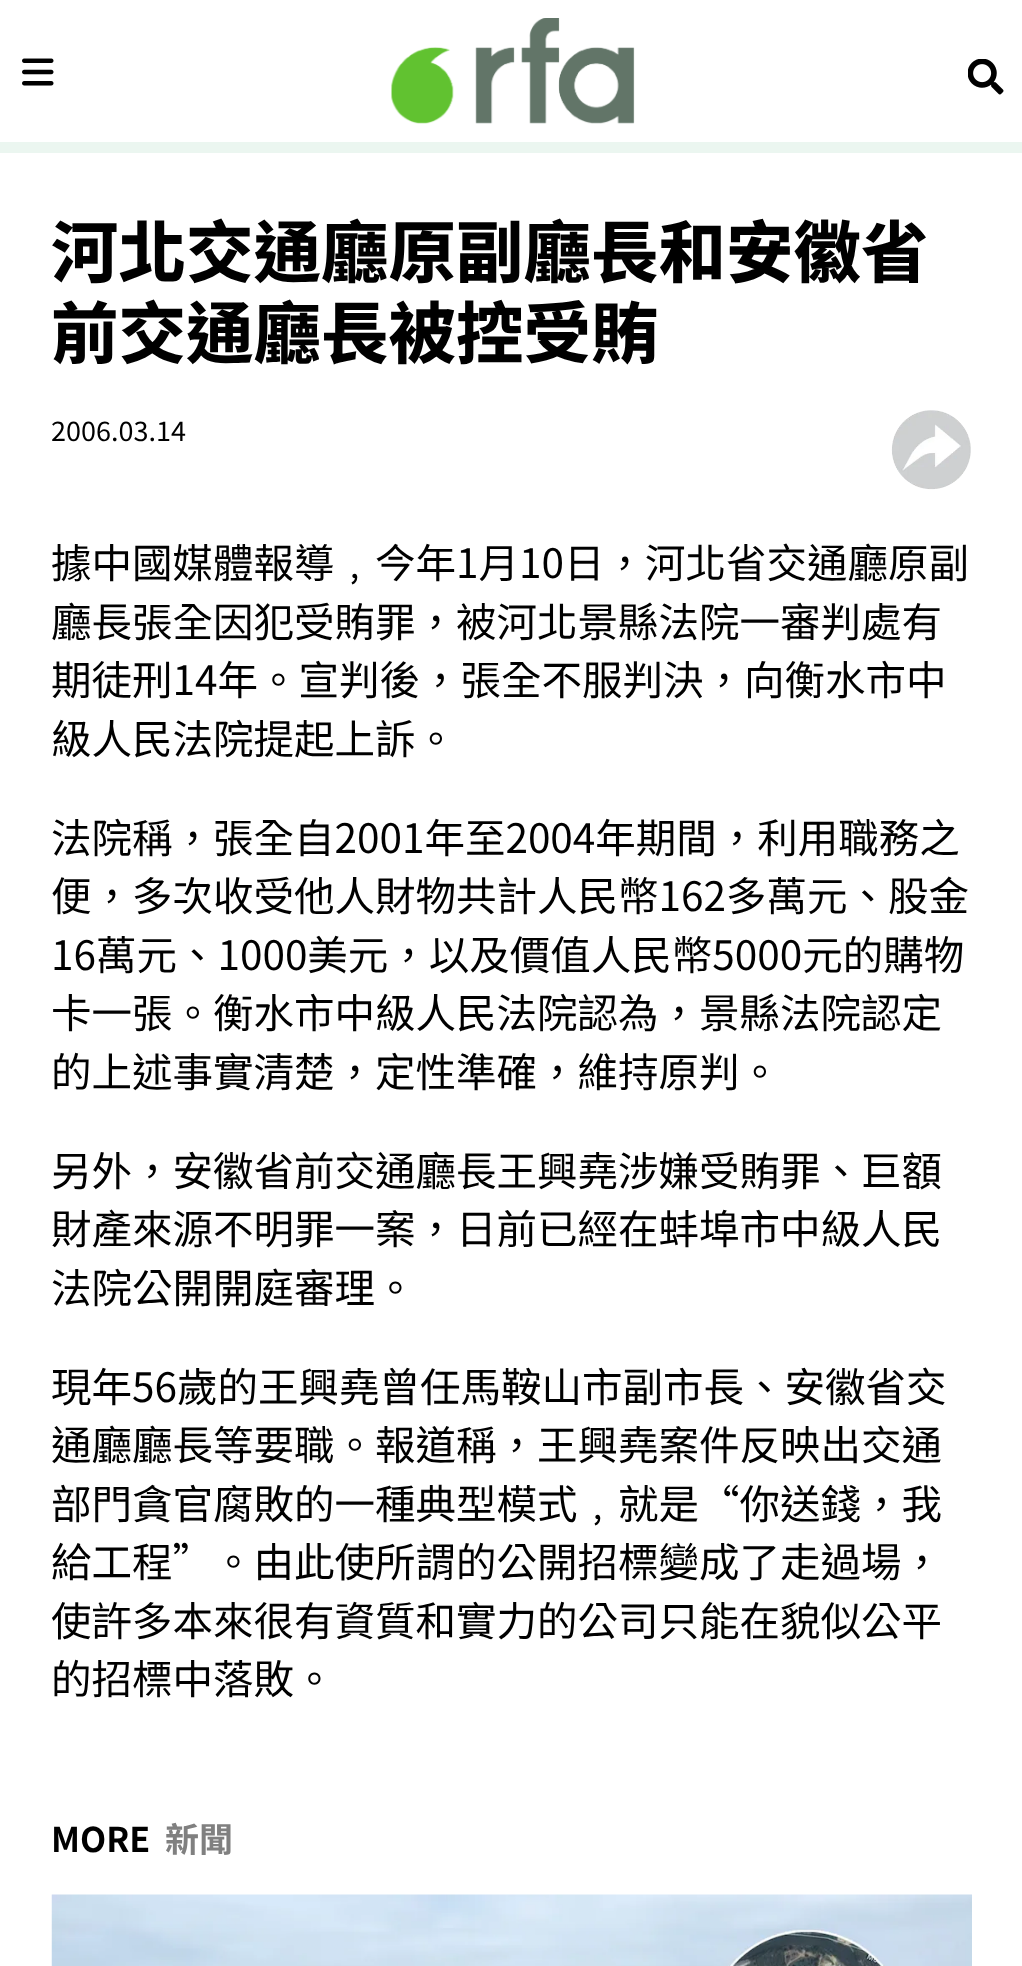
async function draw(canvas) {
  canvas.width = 1022;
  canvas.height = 1966;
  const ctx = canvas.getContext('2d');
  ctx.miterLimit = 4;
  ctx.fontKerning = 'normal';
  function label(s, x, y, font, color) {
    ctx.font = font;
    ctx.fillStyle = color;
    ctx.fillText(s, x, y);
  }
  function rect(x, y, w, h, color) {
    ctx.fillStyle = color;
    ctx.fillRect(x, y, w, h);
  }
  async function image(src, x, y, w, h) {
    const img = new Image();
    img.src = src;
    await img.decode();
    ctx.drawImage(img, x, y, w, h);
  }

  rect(0, 0, 1022, 1966, '#fff');
  rect(0, 142, 1022, 11, '#ebf6f0');
  await image('assets/img1.png', 22, 58, 32, 28);
  await image('assets/img2.png', 391, 18, 244, 106);
  await image('assets/img3.png', 968, 59, 36, 36);
  label('河北交通廳原副廳長和安徽省', 51, 277, '800 67.5px Noto Sans TC', '#000');
  label('前交通廳長被控受賄', 51, 358, '800 67.5px Noto Sans TC', '#000');
  label('2006.03.14', 51, 441, '27px Noto Sans TC', '#000');
  await image('assets/img4.png', 891, 410, 80, 80);
  label('據中國媒體報導﹐今年1月10日，河北省交通廳原副', 51, 578, '40.5px Noto Sans TC', '#000');
  label('廳長張全因犯受賄罪，被河北景縣法院一審判處有', 51, 637, '40.5px Noto Sans TC', '#000');
  label('期徒刑14年。宣判後，張全不服判決，向衡水市中', 51, 695, '40.5px Noto Sans TC', '#000');
  label('級人民法院提起上訴。', 51, 754, '40.5px Noto Sans TC', '#000');
  label('法院稱，張全自2001年至2004年期間，利用職務之', 51, 853, '40.5px Noto Sans TC', '#000');
  label('便，多次收受他人財物共計人民幣162多萬元、股金', 51, 911, '40.5px Noto Sans TC', '#000');
  label('16萬元、1000美元，以及價值人民幣5000元的購物', 51, 970, '40.5px Noto Sans TC', '#000');
  label('卡一張。衡水市中級人民法院認為，景縣法院認定', 51, 1028, '40.5px Noto Sans TC', '#000');
  label('的上述事實清楚，定性準確，維持原判。', 51, 1087, '40.5px Noto Sans TC', '#000');
  label('另外，安徽省前交通廳長王興堯涉嫌受賄罪、巨額', 51, 1186, '40.5px Noto Sans TC', '#000');
  label('財產來源不明罪一案，日前已經在蚌埠市中級人民', 51, 1244, '40.5px Noto Sans TC', '#000');
  label('法院公開開庭審理。', 51, 1303, '40.5px Noto Sans TC', '#000');
  label('現年56歲的王興堯曾任馬鞍山市副市長、安徽省交', 51, 1402, '40.5px Noto Sans TC', '#000');
  label('通廳廳長等要職。報道稱，王興堯案件反映出交通', 51, 1460, '40.5px Noto Sans TC', '#000');
  label('部門貪官腐敗的一種典型模式﹐就是“你送錢，我', 51, 1519, '40.5px Noto Sans TC', '#000');
  label('給工程”。由此使所謂的公開招標變成了走過場，', 51, 1577, '40.5px Noto Sans TC', '#000');
  label('使許多本來很有資質和實力的公司只能在貌似公平', 51, 1636, '40.5px Noto Sans TC', '#000');
  label('的招標中落敗。', 51, 1694, '40.5px Noto Sans TC', '#000');
  label('MORE', 51, 1852, 'bold 34px Noto Sans TC', '#000');
  label('新聞', 165, 1852, 'bold 34px Noto Sans TC', '#808080');
  await image('assets/img5.png', 51, 1894, 921, 72);
}

draw(document.querySelector('canvas'));
